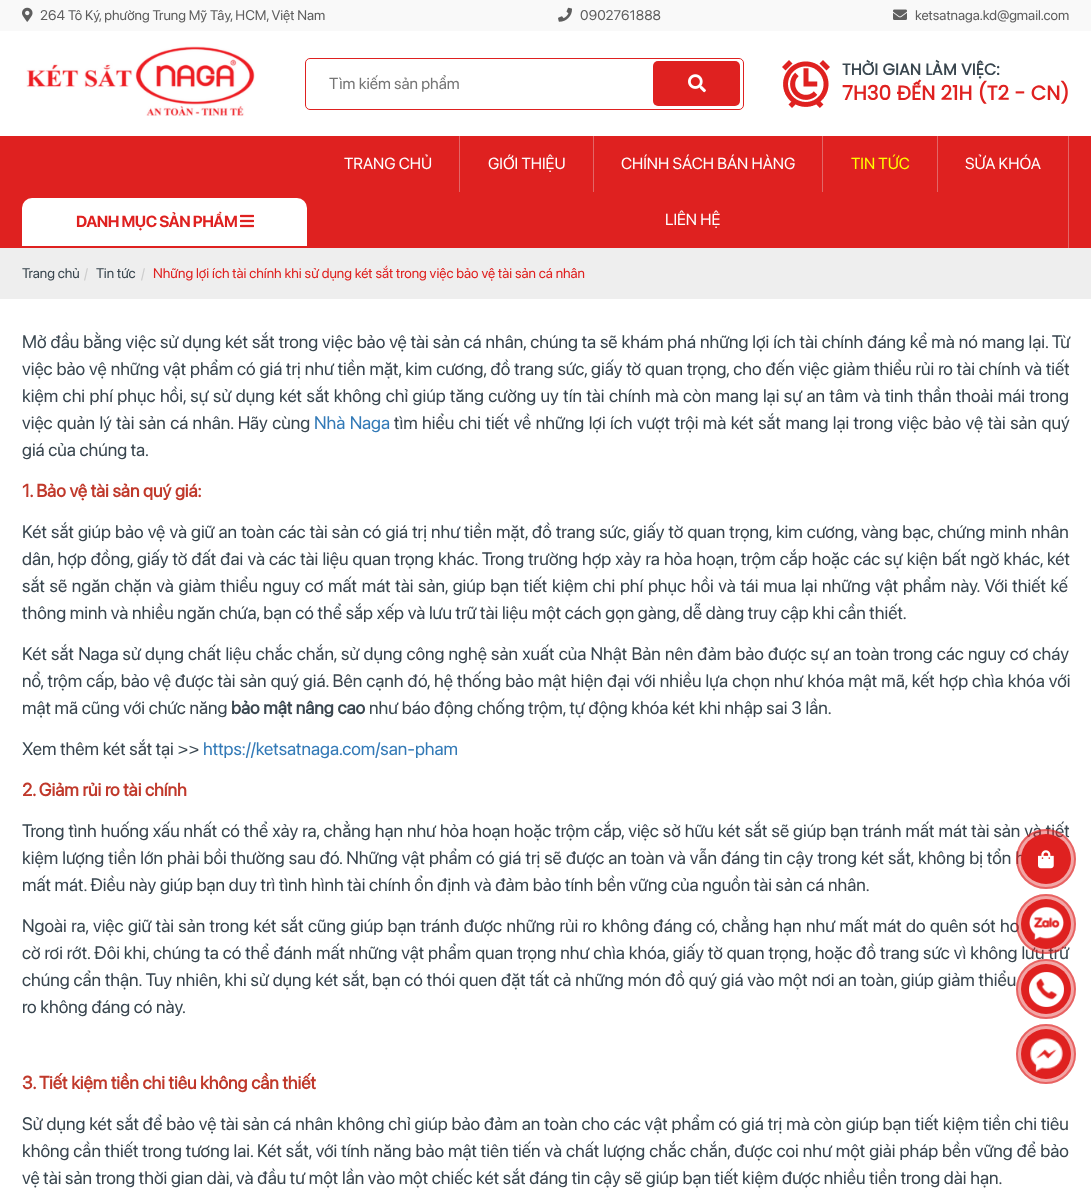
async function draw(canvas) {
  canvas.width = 1091;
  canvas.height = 1194;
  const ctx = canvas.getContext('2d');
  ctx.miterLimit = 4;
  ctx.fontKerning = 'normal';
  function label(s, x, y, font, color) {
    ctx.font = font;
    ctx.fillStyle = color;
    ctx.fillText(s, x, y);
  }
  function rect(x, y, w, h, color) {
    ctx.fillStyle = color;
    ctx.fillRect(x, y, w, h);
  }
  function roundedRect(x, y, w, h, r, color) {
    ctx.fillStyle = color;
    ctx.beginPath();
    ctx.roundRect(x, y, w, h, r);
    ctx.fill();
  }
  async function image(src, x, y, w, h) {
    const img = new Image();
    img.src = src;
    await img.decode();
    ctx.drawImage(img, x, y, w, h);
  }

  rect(0, 0, 1091, 1194, '#fff');
  rect(0, 0, 1091, 31, '#f9f9f9');
  await image('assets/img1.png', 22, 7, 11, 15);
  label('264 Tô Ký, phường Trung Mỹ Tây, HCM, Việt Nam', 40, 20, '14px SF Pro Display', '#5e5e5e');
  await image('assets/img2.png', 558, 7, 14, 15);
  label('0902761888', 580, 20, '14px SF Pro Display', '#5e5e5e');
  await image('assets/img3.png', 893, 9, 14, 11);
  label('ketsatnaga.kd@gmail.com', 915, 20, '14px SF Pro Display', '#5e5e5e');
  await image('assets/img4.png', 26, 46, 229, 70);
  ctx.beginPath();
  ctx.roundRect(305.5, 58.5, 438, 51, 4.5);
  ctx.strokeStyle = '#df2120';
  ctx.stroke();
  label('Tìm kiếm sản phẩm', 329, 89, '16px SF Pro Display', '#757575');
  roundedRect(653, 61, 87, 45, 5, '#df2120');
  await image('assets/img5.png', 688, 74, 18, 19);
  await image('assets/img6.png', 782, 60, 48, 48);
  label('THỜI GIAN LÀM VIỆC:', 842, 75, 'bold 16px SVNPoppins', '#39464f');
  label('7H30 ĐẾN 21H (T2 - CN)', 842, 100, 'bold 20px SVNPoppins', '#df2120');
  rect(0, 136, 1091, 112, '#df2120');
  ctx.fillStyle = '#fff';
  ctx.beginPath();
  ctx.roundRect(22, 198, 285, 50, [10, 10, 0, 0]);
  ctx.fill();
  rect(22, 246, 285, 2, '#df2120');
  ctx.letterSpacing = '-0.5px';
  label('DANH MỤC SẢN PHẨM', 76, 227, 'bold 16px "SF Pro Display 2"', '#df2120');
  await image('assets/img7.png', 240, 214, 14, 14);
  rect(459, 136, 1, 56, '#e26767');
  ctx.letterSpacing = '0px';
  label('TRANG CHỦ', 344, 169, '16px SF Pro Display', '#fff');
  rect(593, 136, 1, 56, '#e26767');
  label('GIỚI THIỆU', 488, 169, '16px SF Pro Display', '#fff');
  rect(822, 136, 1, 56, '#e26767');
  label('CHÍNH SÁCH BÁN HÀNG', 621, 169, '16px SF Pro Display', '#fff');
  rect(937, 136, 1, 56, '#e26767');
  label('TIN TỨC', 851, 169, '16px SF Pro Display', '#ff0');
  rect(1068, 136, 1, 112, '#e26767');
  label('SỬA KHÓA', 965, 169, '16px SF Pro Display', '#fff');
  label('LIÊN HỆ', 665, 225, '16px SF Pro Display', '#fff');
  rect(0, 248, 1091, 51, '#eee');
  label('Trang chủ', 22, 278, '14px SF Pro Display', '#39464f');
  label('/', 84, 278, '14px SF Pro Display', '#ccc');
  label('Tin tức', 96, 278, '14px SF Pro Display', '#39464f');
  label('/', 141, 278, '14px SF Pro Display', '#ccc');
  label('Những lợi ích tài chính khi sử dụng két sắt trong việc bảo vệ tài sản cá nhân', 153, 278, '14px SF Pro Display', '#df2120');
  ctx.wordSpacing = '0.25px';
  label('Mở đầu bằng việc sử dụng két sắt trong việc bảo vệ tài sản cá nhân, chúng ta sẽ khám phá những lợi ích tài chính đáng kể mà nó mang lại. Từ', 22, 348, '18px SF Pro Display', '#39464f');
  label('việc bảo vệ những vật phẩm có giá trị như tiền mặt, kim cương, đồ trang sức, giấy tờ quan trọng, cho đến việc giảm thiểu rủi ro tài chính và tiết', 22, 375, '18px SF Pro Display', '#39464f');
  ctx.wordSpacing = '0.8px';
  label('kiệm chi phí phục hồi, sự sử dụng két sắt không chỉ giúp tăng cường uy tín tài chính mà còn mang lại sự an tâm và tinh thần thoải mái trong', 22, 402, '18px SF Pro Display', '#39464f');
  ctx.wordSpacing = '0.75px';
  label('việc quản lý tài sản cá nhân. Hãy cùng', 22, 429, '18px SF Pro Display', '#39464f');
  label('Nhà Naga', 314, 429, '18px SF Pro Display', '#337ab7');
  label('tìm hiểu chi tiết về những lợi ích vượt trội mà két sắt mang lại trong việc bảo vệ tài sản quý', 394, 429, '18px SF Pro Display', '#39464f');
  ctx.wordSpacing = '0px';
  label('giá của chúng ta.', 22, 456, '18px SF Pro Display', '#39464f');
  label('1. Bảo vệ tài sản quý giá:', 22, 497, 'bold 18px SF Pro Display', '#c0392b');
  ctx.wordSpacing = '0.4px';
  label('Két sắt giúp bảo vệ và giữ an toàn các tài sản có giá trị như tiền mặt, đồ trang sức, giấy tờ quan trọng, kim cương, vàng bạc, chứng minh nhân', 22, 538, '18px SF Pro Display', '#39464f');
  label('dân, hợp đồng, giấy tờ đất đai và các tài liệu quan trọng khác. Trong trường hợp xảy ra hỏa hoạn, trộm cắp hoặc các sự kiện bất ngờ khác, két', 22, 565, '18px SF Pro Display', '#39464f');
  ctx.wordSpacing = '1px';
  label('sắt sẽ ngăn chặn và giảm thiểu nguy cơ mất mát tài sản, giúp bạn tiết kiệm chi phí phục hồi và tái mua lại những vật phẩm này. Với thiết kế', 22, 592, '18px SF Pro Display', '#39464f');
  ctx.wordSpacing = '0px';
  label('thông minh và nhiều ngăn chứa, bạn có thể sắp xếp và lưu trữ tài liệu một cách gọn gàng, dễ dàng truy cập khi cần thiết.', 22, 619, '18px SF Pro Display', '#39464f');
  ctx.wordSpacing = '0.5px';
  label('Két sắt Naga sử dụng chất liệu chắc chắn, sử dụng công nghệ sản xuất của Nhật Bản nên đảm bảo được sự an toàn trong các nguy cơ cháy', 22, 660, '18px SF Pro Display', '#39464f');
  ctx.wordSpacing = '0.4px';
  label('nổ, trộm cấp, bảo vệ được tài sản quý giá. Bên cạnh đó, hệ thống bảo mật hiện đại với nhiều lựa chọn như khóa mật mã, kết hợp chìa khóa với', 22, 687, '18px SF Pro Display', '#39464f');
  ctx.wordSpacing = '0px';
  label('mật mã cũng với chức năng', 22, 714, '18px SF Pro Display', '#39464f');
  label('bảo mật nâng cao', 231, 714, 'bold 18px SF Pro Display', '#39464f');
  label('như báo động chống trộm, tự động khóa két khi nhập sai 3 lần.', 369, 714, '18px SF Pro Display', '#39464f');
  label('Xem thêm két sắt tại >>', 22, 755, '18px SF Pro Display', '#39464f');
  label('https://ketsatnaga.com/san-pham', 203, 755, '18px SF Pro Display', '#337ab7');
  label('2. Giảm rủi ro tài chính', 22, 796, 'bold 18px SF Pro Display', '#c0392b');
  ctx.wordSpacing = '0.3px';
  label('Trong tình huống xấu nhất có thể xảy ra, chẳng hạn như hỏa hoạn hoặc trộm cắp, việc sở hữu két sắt sẽ giúp bạn tránh mất mát tài sản và tiết', 22, 837, '18px SF Pro Display', '#39464f');
  ctx.wordSpacing = '0.4px';
  label('kiệm lượng tiền lớn phải bồi thường sau đó. Những vật phẩm có giá trị sẽ được an toàn và vẫn đáng tin cậy trong két sắt, không bị tổn h', 22, 864, '18px SF Pro Display', '#39464f');
  ctx.wordSpacing = '0px';
  label('mất mát. Điều này giúp bạn duy trì tình hình tài chính ổn định và đảm bảo tính bền vững của nguồn tài sản cá nhân.', 22, 891, '18px SF Pro Display', '#39464f');
  ctx.wordSpacing = '0.7px';
  label('Ngoài ra, việc giữ tài sản trong két sắt cũng giúp bạn tránh được những rủi ro không đáng có, chẳng hạn như mất mát do quên sót ho', 22, 932, '18px SF Pro Display', '#39464f');
  ctx.wordSpacing = '0.25px';
  label('cờ rơi rớt. Đôi khi, chúng ta có thể đánh mất những vật phẩm quan trọng như chìa khóa, giấy tờ quan trọng, hoặc đồ trang sức vì không lưu trữ', 22, 959, '18px SF Pro Display', '#39464f');
  ctx.wordSpacing = '0.2px';
  label('chúng cẩn thận. Tuy nhiên, khi sử dụng két sắt, bạn có thói quen đặt tất cả những món đồ quý giá vào một nơi an toàn, giúp giảm thiểu', 22, 986, '18px SF Pro Display', '#39464f');
  ctx.wordSpacing = '0px';
  label('ro không đáng có này.', 22, 1013, '18px SF Pro Display', '#39464f');
  label('3. Tiết kiệm tiền chi tiêu không cần thiết', 22, 1089, 'bold 18px SF Pro Display', '#c0392b');
  ctx.wordSpacing = '0.25px';
  label('Sử dụng két sắt để bảo vệ tài sản cá nhân không chỉ giúp bảo đảm an toàn cho các vật phẩm có giá trị mà còn giúp bạn tiết kiệm tiền chi tiêu', 22, 1130, '18px SF Pro Display', '#39464f');
  ctx.wordSpacing = '0.3px';
  label('không cần thiết trong tương lai. Két sắt, với tính năng bảo mật tiên tiến và chất lượng chắc chắn, được coi như một giải pháp bền vững để bảo', 22, 1157, '18px SF Pro Display', '#39464f');
  ctx.wordSpacing = '0px';
  label('vệ tài sản trong thời gian dài, và đầu tư một lần vào một chiếc két sắt đáng tin cậy sẽ giúp bạn tiết kiệm được nhiều tiền trong dài hạn.', 22, 1184, '18px SF Pro Display', '#39464f');
  ctx.beginPath();
  ctx.arc(1046, 859, 29, 0, 2 * Math.PI);
  ctx.strokeStyle = '#df212080';
  ctx.lineWidth = 2;
  ctx.stroke();
  ctx.fillStyle = '#df212066';
  ctx.beginPath();
  ctx.arc(1046, 859, 30, 0, 2 * Math.PI);
  ctx.fill();
  ctx.fillStyle = '#df2120';
  ctx.beginPath();
  ctx.arc(1046, 859, 25, 0, 2 * Math.PI);
  ctx.fill();
  await image('assets/img8.png', 1038, 850, 16, 19);
  ctx.beginPath();
  ctx.arc(1046, 924, 29, 0, 2 * Math.PI);
  ctx.stroke();
  ctx.fillStyle = '#df212066';
  ctx.beginPath();
  ctx.arc(1046, 924, 30, 0, 2 * Math.PI);
  ctx.fill();
  ctx.fillStyle = '#df2120';
  ctx.beginPath();
  ctx.arc(1046, 924, 25, 0, 2 * Math.PI);
  ctx.fill();
  await image('assets/img9.png', 1029, 907, 35, 33);
  ctx.beginPath();
  ctx.arc(1046, 989, 29, 0, 2 * Math.PI);
  ctx.strokeStyle = '#ef9090';
  ctx.stroke();
  ctx.fillStyle = '#df212066';
  ctx.beginPath();
  ctx.arc(1046, 989, 30, 0, 2 * Math.PI);
  ctx.fill();
  ctx.fillStyle = '#df2120';
  ctx.beginPath();
  ctx.arc(1046, 989, 25, 0, 2 * Math.PI);
  ctx.fill();
  await image('assets/img10.png', 1029, 972, 35, 35);
  ctx.beginPath();
  ctx.arc(1046, 1054, 29, 0, 2 * Math.PI);
  ctx.stroke();
  ctx.fillStyle = '#df212066';
  ctx.beginPath();
  ctx.arc(1046, 1054, 30, 0, 2 * Math.PI);
  ctx.fill();
  ctx.fillStyle = '#df2120';
  ctx.beginPath();
  ctx.arc(1046, 1054, 25, 0, 2 * Math.PI);
  ctx.fill();
  await image('assets/img11.png', 1030, 1038, 33, 34);
}

draw(document.querySelector('canvas'));
